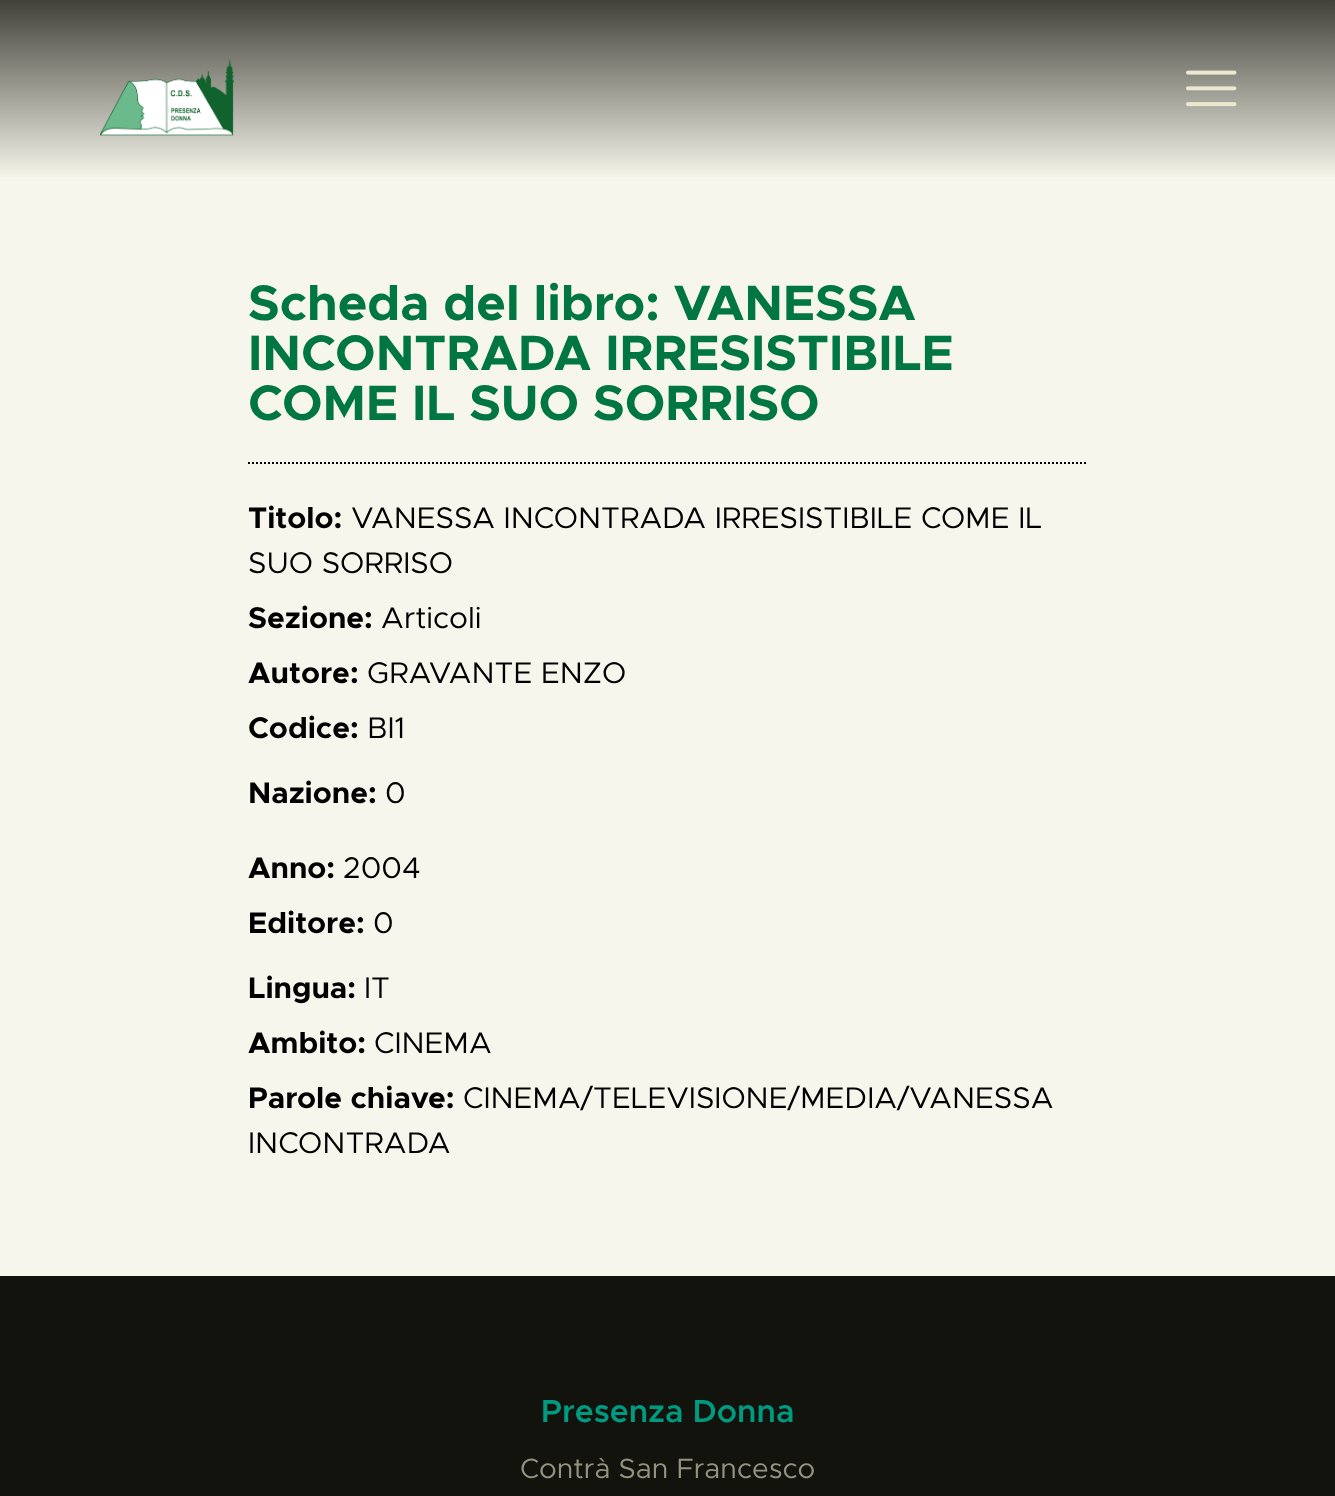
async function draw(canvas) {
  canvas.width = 1335;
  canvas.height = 1496;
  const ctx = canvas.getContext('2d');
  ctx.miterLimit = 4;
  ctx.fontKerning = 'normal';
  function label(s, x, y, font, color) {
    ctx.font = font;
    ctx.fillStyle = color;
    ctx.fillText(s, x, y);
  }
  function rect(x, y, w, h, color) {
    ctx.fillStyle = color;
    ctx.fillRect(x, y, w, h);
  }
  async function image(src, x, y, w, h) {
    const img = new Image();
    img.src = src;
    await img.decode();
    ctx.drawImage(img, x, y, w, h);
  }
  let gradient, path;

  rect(0, 0, 1335, 1496, '#f7f6ec');
  gradient = ctx.createLinearGradient(668, 180, 668, 0);
  gradient.addColorStop(0, '#f8f7ec');
  gradient.addColorStop(1, '#41413a');
  ctx.fillStyle = gradient;
  ctx.fillRect(0, 0, 1335, 177);
  await image('assets/img1.png', 100, 58, 134, 78);
  await image('assets/img2.png', 1186, 70, 51, 37);
  label('Scheda del libro: VANESSA', 248, 320, 'bold 50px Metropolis', '#007742');
  label('INCONTRADA IRRESISTIBILE', 248, 370, 'bold 50px Metropolis', '#007742');
  label('COME IL SUO SORRISO', 248, 420, 'bold 50px Metropolis', '#007742');
  path = new Path2D('M248 463H1088');
  ctx.strokeStyle = '#000';
  ctx.lineWidth = 2;
  ctx.setLineDash([2, 2]);
  ctx.stroke(path);
  label('Titolo:', 248, 528, 'bold 30px Metropolis', '#000');
  label('VANESSA INCONTRADA IRRESISTIBILE COME IL', 351, 528, '30px Metropolis', '#000');
  label('SUO SORRISO', 248, 573, '30px Metropolis', '#000');
  label('Sezione:', 248, 628, 'bold 30px Metropolis', '#000');
  label('Articoli', 381, 628, '30px Metropolis', '#000');
  label('Autore:', 248, 683, 'bold 30px Metropolis', '#000');
  label('GRAVANTE ENZO', 367, 683, '30px Metropolis', '#000');
  label('Codice:', 248, 738, 'bold 30px Metropolis', '#000');
  label('BI1', 367, 738, '30px Metropolis', '#000');
  label('Nazione:', 248, 803, 'bold 30px Metropolis', '#000');
  label('0', 385, 803, '30px Metropolis', '#000');
  label('Anno:', 248, 878, 'bold 30px Metropolis', '#000');
  label('2004', 343, 878, '30px Metropolis', '#000');
  label('Editore:', 248, 933, 'bold 30px Metropolis', '#000');
  label('0', 373, 933, '30px Metropolis', '#000');
  label('Lingua:', 248, 998, 'bold 30px Metropolis', '#000');
  label('IT', 364, 998, '30px Metropolis', '#000');
  label('Ambito:', 248, 1053, 'bold 30px Metropolis', '#000');
  label('CINEMA', 374, 1053, '30px Metropolis', '#000');
  label('Parole chiave:', 248, 1108, 'bold 30px Metropolis', '#000');
  label('CINEMA/TELEVISIONE/MEDIA/VANESSA', 463, 1108, '30px Metropolis', '#000');
  label('INCONTRADA', 248, 1153, '30px Metropolis', '#000');
  rect(0, 1276, 1335, 220, '#13130d');
  label('Presenza Donna', 541, 1422, '600 32px Metropolis', '#009a80');
  label('Contrà San Francesco', 520, 1478, '28px Metropolis', '#949380');
}

draw(document.querySelector('canvas'));
